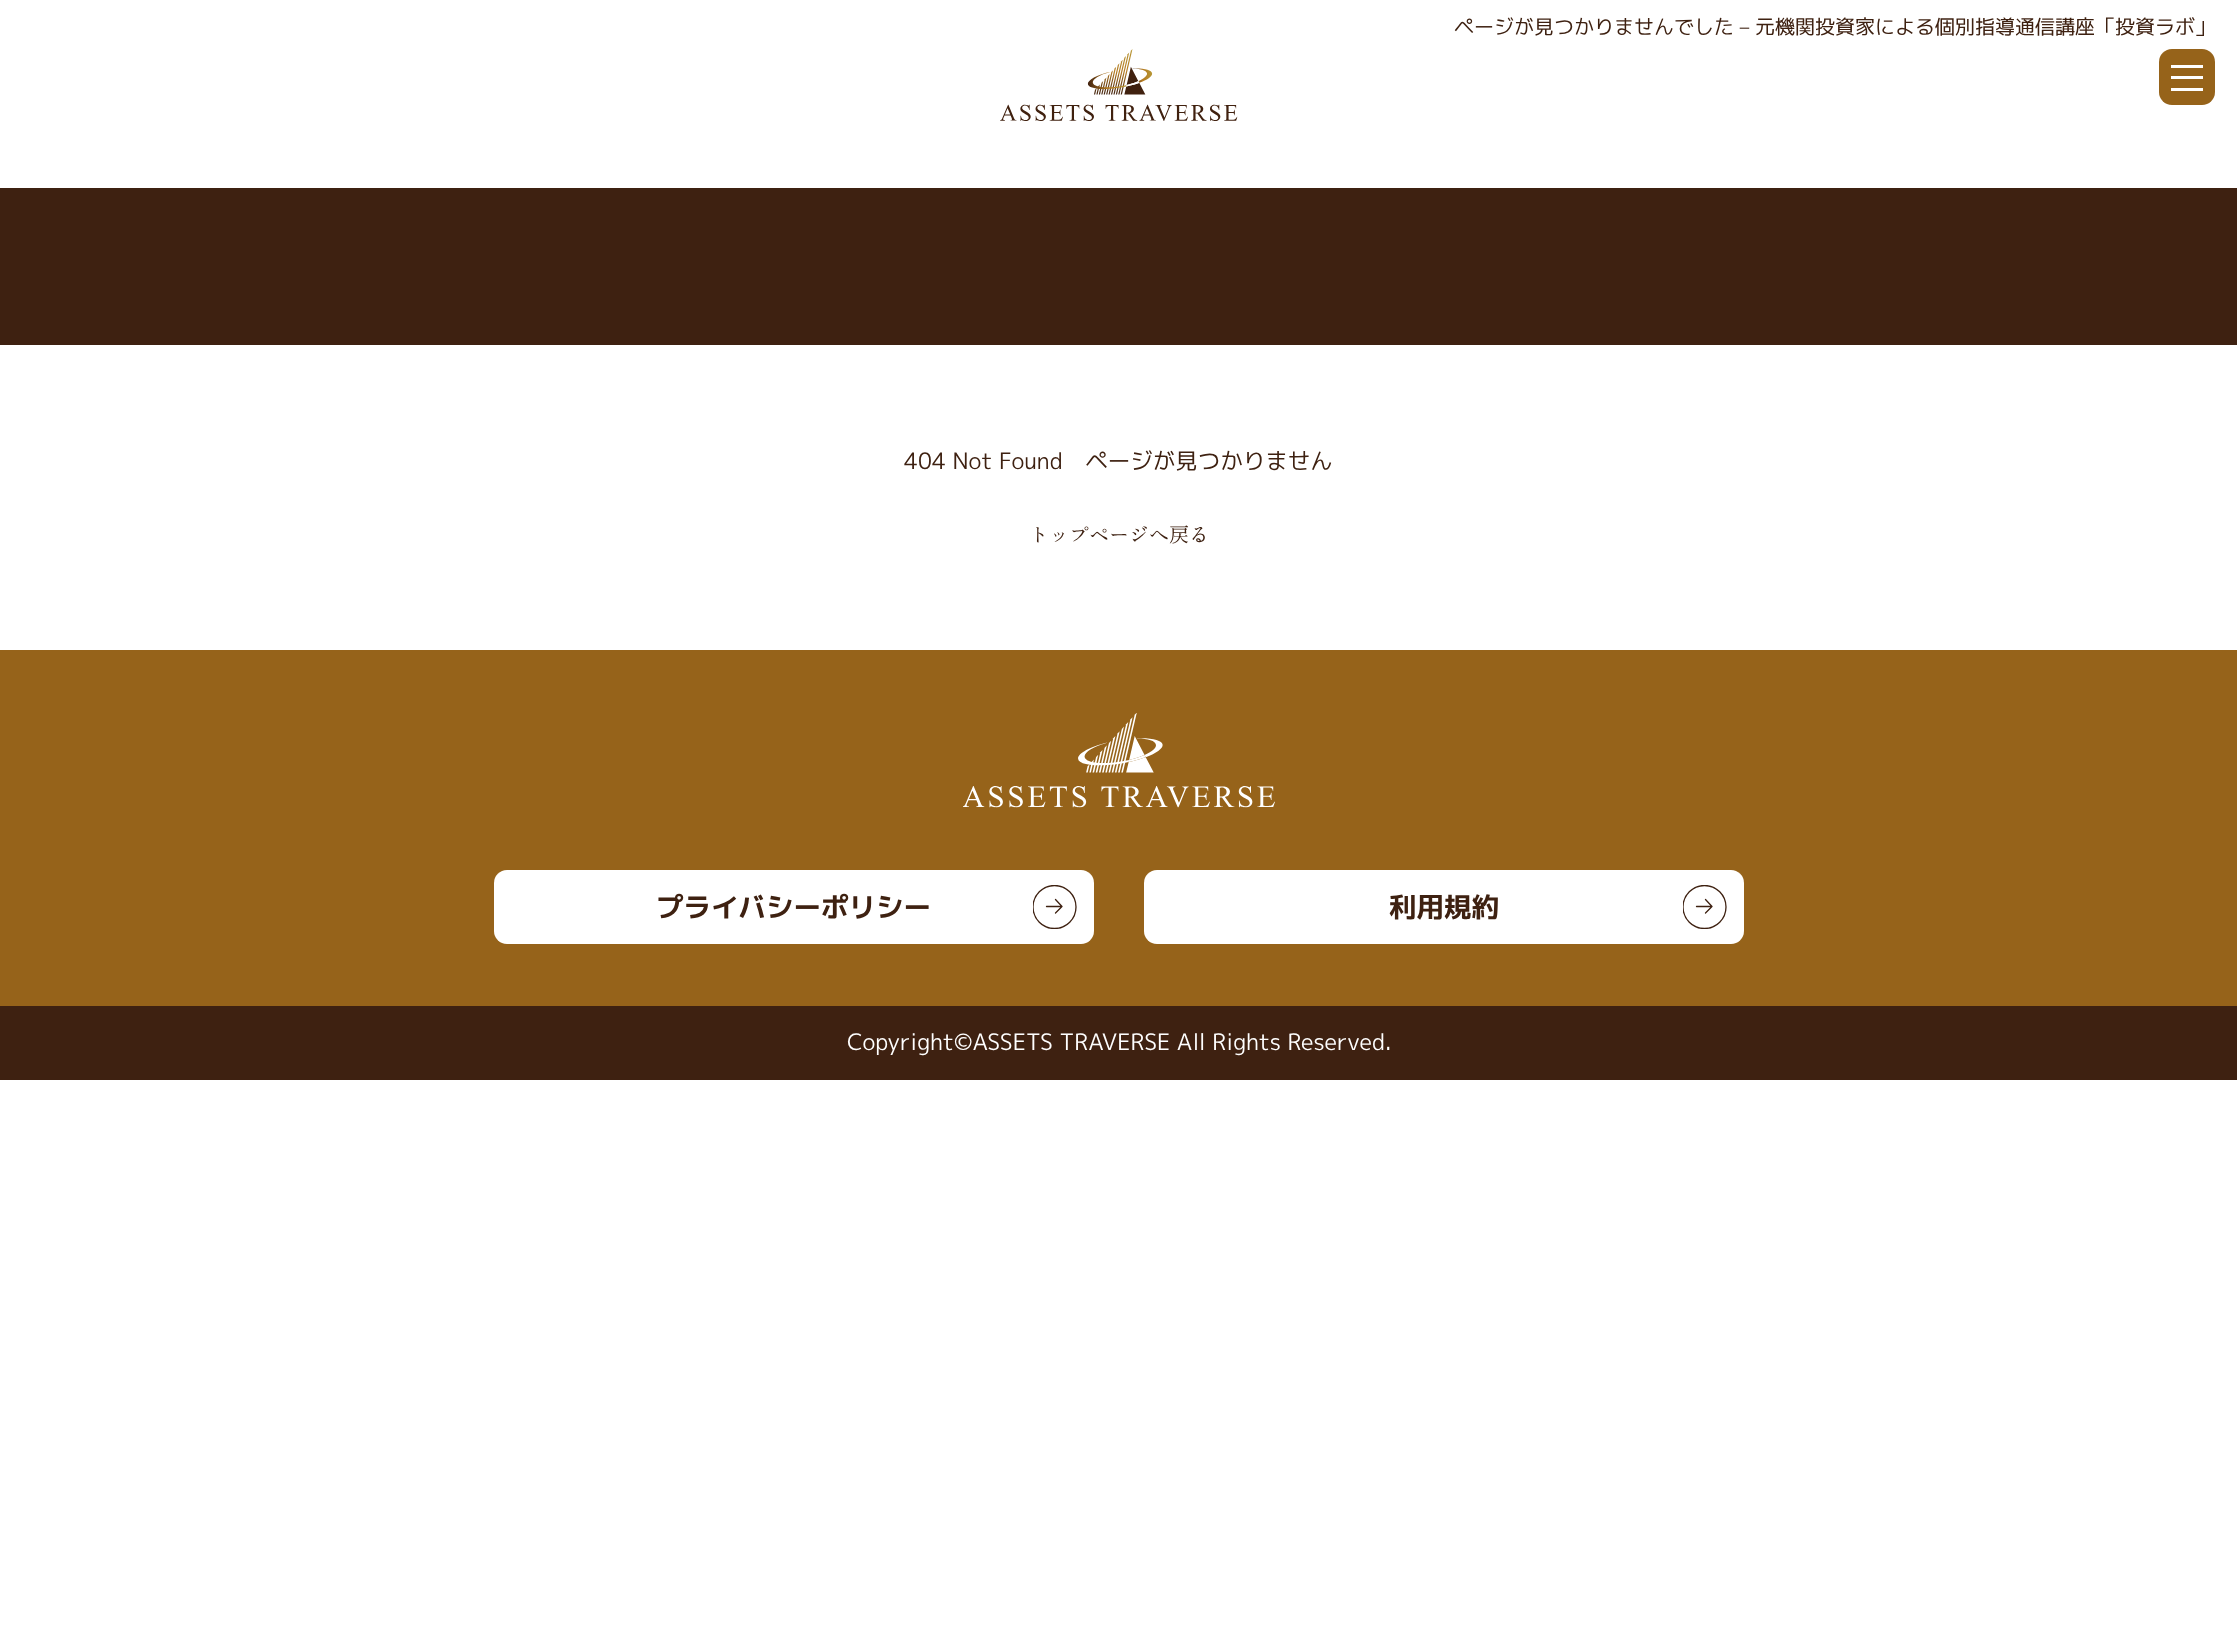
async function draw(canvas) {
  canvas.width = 2237;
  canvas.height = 1641;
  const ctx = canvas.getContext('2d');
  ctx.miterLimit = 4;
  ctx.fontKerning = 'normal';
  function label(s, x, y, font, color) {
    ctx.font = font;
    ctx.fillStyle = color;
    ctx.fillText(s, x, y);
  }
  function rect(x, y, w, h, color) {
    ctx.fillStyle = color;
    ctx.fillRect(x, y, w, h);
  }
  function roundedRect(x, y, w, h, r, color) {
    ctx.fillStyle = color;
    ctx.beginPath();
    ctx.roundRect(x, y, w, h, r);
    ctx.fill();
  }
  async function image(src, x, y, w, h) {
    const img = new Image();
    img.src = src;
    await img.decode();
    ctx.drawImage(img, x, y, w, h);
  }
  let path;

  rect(0, 0, 2237, 1641, '#fff');
  label('ページが見つかりませんでした – 元機関投資家による個別指導通信講座「投資ラボ」', 1454, 34, '20px "M PLUS 1p"', '#3e2111');
  await image('assets/img1.png', 1000, 49, 238, 72);
  roundedRect(2159, 49, 56, 56, 13, '#96631a');
  rect(2171, 65, 32, 3, '#fff');
  rect(2171, 76, 32, 3, '#fff');
  rect(2171, 88, 32, 3, '#fff');
  rect(0, 188, 2237, 157, '#3e2111');
  label('404 Not Found　ページが見つかりません', 904, 469, '22.5px "M PLUS 1p"', '#3e2111');
  label('トップページへ戻る', 1029, 542, '20px Zen Old Mincho', '#3e2111');
  rect(0, 650, 2237, 356, '#96631a');
  await image('assets/img2.png', 963, 713, 312, 95);
  roundedRect(494, 870, 600, 74, 13, '#fff');
  path = new Path2D('M1046.5 906.5H1062M1055.5 899.5L1062 906.5L1055.5 913');
  ctx.strokeStyle = '#3e2111';
  ctx.lineWidth = 1.3;
  ctx.lineCap = 'round';
  ctx.lineJoin = 'round';
  ctx.stroke(path);
  ctx.save();
  ctx.beginPath();
  ctx.rect(1033, 885, 45, 44);
  ctx.clip();
  ctx.beginPath();
  ctx.arc(1054.5, 907, 21.5, 0, 2 * Math.PI);
  ctx.stroke();
  ctx.restore();
  label('プライバシーポリシー', 656, 917, 'bold 27.5px "M PLUS 1p"', '#3e2111');
  roundedRect(1144, 870, 600, 74, 13, '#fff');
  path = new Path2D('M1696.5 906.5H1712M1705.5 899.5L1712 906.5L1705.5 913');
  ctx.stroke(path);
  ctx.save();
  ctx.beginPath();
  ctx.rect(1683, 885, 45, 44);
  ctx.clip();
  ctx.beginPath();
  ctx.arc(1704.5, 907, 21.5, 0, 2 * Math.PI);
  ctx.stroke();
  ctx.restore();
  label('利用規約', 1389, 917, 'bold 27.5px "M PLUS 1p"', '#3e2111');
  rect(0, 1006, 2237, 74, '#3e2111');
  label('Copyright©ASSETS TRAVERSE All Rights Reserved.', 847, 1050, '22.5px "M PLUS 1p"', '#fff');
}

draw(document.querySelector('canvas'));
